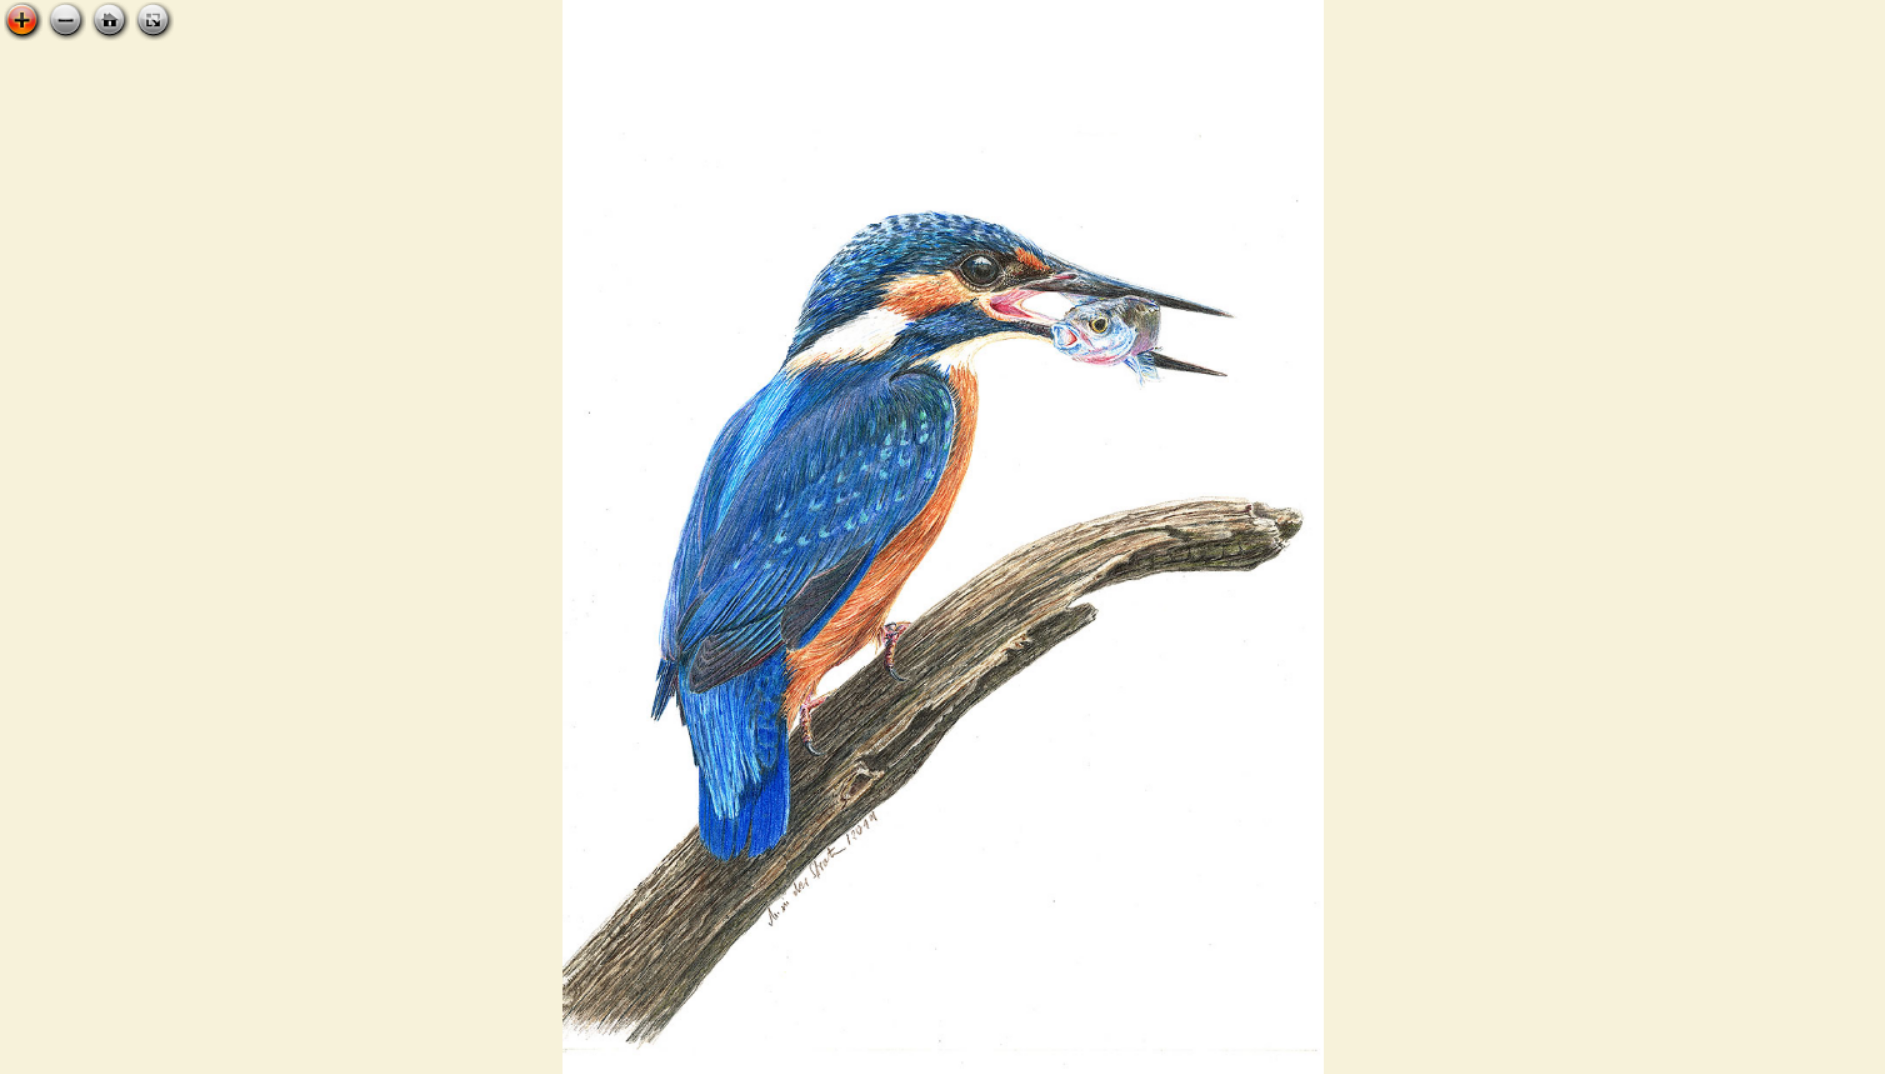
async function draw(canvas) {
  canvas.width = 1885;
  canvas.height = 1074;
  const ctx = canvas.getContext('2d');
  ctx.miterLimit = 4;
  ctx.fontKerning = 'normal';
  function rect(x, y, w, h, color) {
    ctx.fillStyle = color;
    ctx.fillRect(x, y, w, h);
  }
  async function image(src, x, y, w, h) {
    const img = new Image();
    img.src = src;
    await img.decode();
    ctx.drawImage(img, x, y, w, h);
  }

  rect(0, 0, 1885, 1074, '#f7f2da');
  await image('assets/img1.png', 4, 2, 39, 39);
  await image('assets/img2.png', 4, 2, 39, 39);
  await image('assets/img3.png', 4, 2, 39, 39);
  await image('assets/img4.png', 47, 2, 39, 39);
  await image('assets/img5.png', 47, 2, 39, 39);
  await image('assets/img6.png', 91, 2, 39, 39);
  await image('assets/img7.png', 91, 2, 39, 39);
  await image('assets/img8.png', 135, 2, 39, 39);
  await image('assets/img9.png', 135, 2, 39, 39);
  await image('assets/img10.png', 562, 0, 762, 1074);
}

draw(document.querySelector('canvas'));
